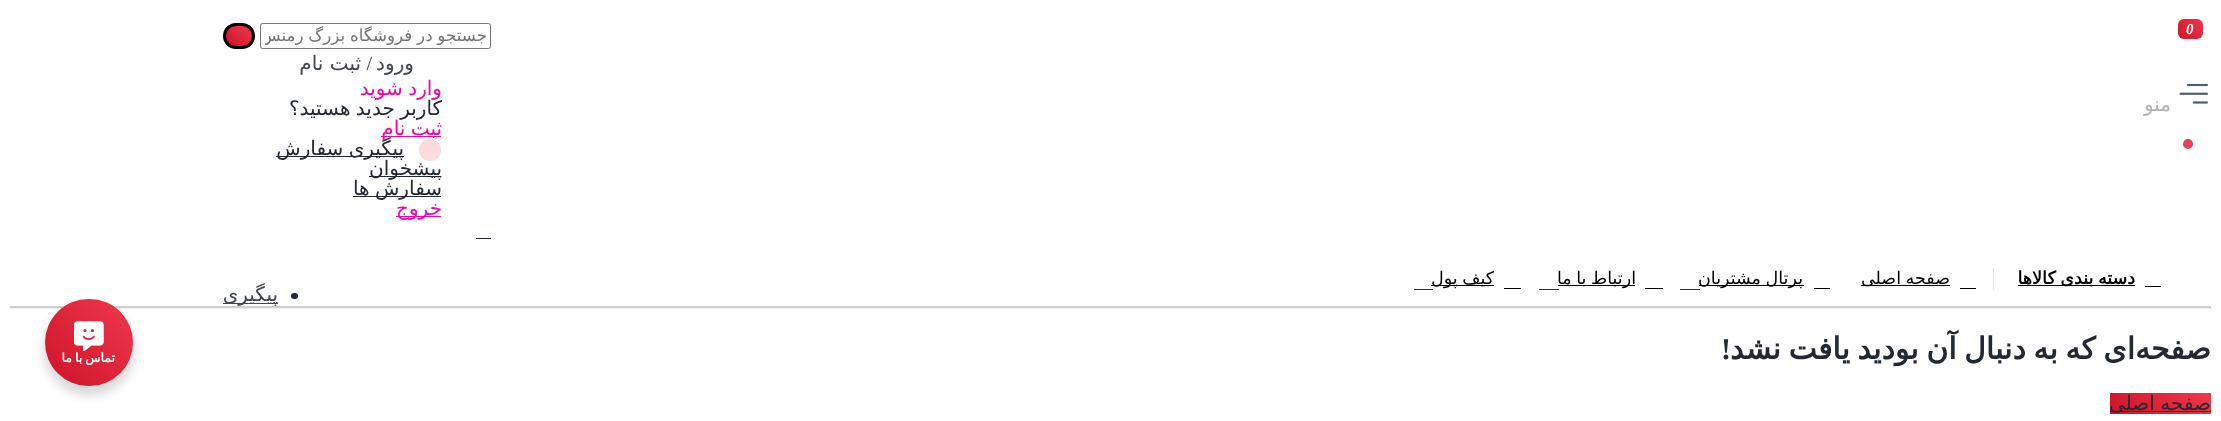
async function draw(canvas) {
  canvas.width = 2221;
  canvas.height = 421;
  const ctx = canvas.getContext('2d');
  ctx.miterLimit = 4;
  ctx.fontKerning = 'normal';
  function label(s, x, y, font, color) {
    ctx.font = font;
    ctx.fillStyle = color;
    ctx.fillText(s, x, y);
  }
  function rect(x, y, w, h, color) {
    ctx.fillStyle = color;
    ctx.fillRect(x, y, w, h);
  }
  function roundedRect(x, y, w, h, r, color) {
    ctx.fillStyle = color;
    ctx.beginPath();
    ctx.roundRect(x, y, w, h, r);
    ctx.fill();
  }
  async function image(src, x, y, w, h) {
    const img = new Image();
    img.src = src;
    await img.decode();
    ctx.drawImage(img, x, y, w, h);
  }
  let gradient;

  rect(0, 0, 2221, 421, '#fff');
  gradient = ctx.createLinearGradient(2201, 18, 2179, 40);
  gradient.addColorStop(0, '#ee384e');
  gradient.addColorStop(1, '#ce1328');
  ctx.fillStyle = gradient;
  ctx.beginPath();
  ctx.roundRect(2178, 19, 25, 20, 6);
  ctx.fill();
  label('0', 2186, 34, 'italic bold 15px Liberation Serif', '#fff');
  rect(476, 238, 15, 1, '#232933');
  ctx.direction = 'rtl';
  label('ورود', 414, 70, '20px DejaVu Sans', '#424750');
  label('/', 372, 70, '20px Liberation Serif', '#424750');
  label('ثبت نام', 361, 70, '20px DejaVu Sans', '#424750');
  ctx.wordSpacing = '-1px';
  label('وارد شوید', 442, 95, '20px DejaVu Sans', '#ff00a4');
  label('کاربر جدید هستید؟', 442, 115, '20px DejaVu Sans', '#232933');
  rect(381, 136, 60, 1, '#ff00a4');
  label('ثبت نام', 442, 135, '20px DejaVu Sans', '#ff00a4');
  ctx.fillStyle = '#ea3f55';
  ctx.beginPath();
  ctx.arc(2188, 144, 5, 0, 2 * Math.PI);
  ctx.fill();
  rect(369, 176, 72, 1, '#232933');
  ctx.wordSpacing = '0px';
  label('پیشخوان', 442, 175, '20px DejaVu Sans', '#232933');
  ctx.fillStyle = '#fbdbde';
  ctx.beginPath();
  ctx.arc(430, 150, 11, 0, 2 * Math.PI);
  ctx.fill();
  rect(276, 156, 128, 1, '#232933');
  ctx.wordSpacing = '-1px';
  label('پیگیری سفارش', 404, 155, '20px DejaVu Sans', '#232933');
  rect(353, 196, 88, 1, '#232933');
  label('سفارش ها', 442, 195, '20px DejaVu Sans', '#232933');
  rect(396, 216, 45, 1, '#ff00a4');
  ctx.wordSpacing = '0px';
  label('خروج', 442, 215, '20px DejaVu Sans', '#ff00a4');
  ctx.beginPath();
  ctx.roundRect(260.5, 23.5, 230, 25, 2);
  ctx.strokeStyle = '#767676';
  ctx.stroke();
  ctx.save();
  ctx.beginPath();
  ctx.rect(265, 26, 221, 19);
  ctx.clip();
  ctx.wordSpacing = '-0.5px';
  label('جستجو در فروشگاه بزرگ رمنس شاپ', 487, 41, '16.7px DejaVu Sans', '#757575');
  ctx.restore();
  ctx.save();
  ctx.beginPath();
  ctx.roundRect(223, 23, 32, 26, 13);
  ctx.clip();
  gradient = ctx.createLinearGradient(251, 23, 227, 48);
  gradient.addColorStop(0, '#ee384e');
  gradient.addColorStop(1, '#ce1328');
  ctx.fillStyle = gradient;
  ctx.fillRect(225, 25, 28, 21);
  ctx.restore();
  ctx.beginPath();
  ctx.roundRect(224.5, 24.5, 29, 23, 11.5);
  ctx.strokeStyle = '#000';
  ctx.lineWidth = 3;
  ctx.stroke();
  await image('assets/img1.png', 2179, 83, 29, 21);
  label('منو', 2171, 111, '20px DejaVu Sans', '#b4b4b4');
  rect(10, 308, 2201, 1, '#f2f2f2');
  rect(10, 306, 2201, 2, '#d0d0d0');
  rect(2145, 286, 16, 1, '#000');
  rect(2018, 285, 117, 1, '#000');
  ctx.wordSpacing = '-1px';
  label('دسته بندی کالاها', 2135, 284, 'bold 17.5px DejaVu Sans', '#000');
  roundedRect(1993, 268, 1, 22, 0.5, '#e5e5e5');
  rect(1861, 285, 89, 1, '#000');
  label('صفحه اصلی', 1950, 284, '17.5px DejaVu Sans', '#000');
  rect(1960, 288, 16, 1, '#000');
  rect(1814, 288, 16, 1, '#000');
  rect(1699, 285, 105, 1, '#000');
  label('پرتال مشتریان', 1803, 284, '17.5px DejaVu Sans', '#000');
  rect(1680, 289, 20, 1, '#333');
  rect(1645, 288, 18, 1, '#000');
  rect(1558, 285, 77, 1, '#000');
  label('ارتباط با ما', 1636, 284, '17.5px DejaVu Sans', '#000');
  rect(1539, 289, 20, 1, '#333');
  rect(1504, 288, 17, 1, '#000');
  rect(1431, 285, 63, 1, '#000');
  label('کیف پول', 1494, 284, '17.5px DejaVu Sans', '#000');
  rect(1414, 289, 19, 1, '#333');
  roundedRect(291, 293, 7, 6, 3, '#232933');
  rect(223, 303, 55, 1, '#424750');
  ctx.wordSpacing = '0px';
  label('پیگیری', 278, 301, '20px DejaVu Sans', '#424750');
  label('صفحه', 2211, 359, 'bold 30px DejaVu Sans', '#232933');
  ctx.wordSpacing = '-2px';
  label('ای که به دنبال آن بودید یافت نشد', 2135, 359, 'bold 30px DejaVu Sans', '#232933');
  ctx.wordSpacing = '0px';
  label('!', 1731, 359, 'bold 30px Liberation Serif', '#232933');
  gradient = ctx.createLinearGradient(2191, 373, 2130, 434);
  gradient.addColorStop(0, '#ee384e');
  gradient.addColorStop(1, '#ce1328');
  ctx.fillStyle = gradient;
  ctx.fillRect(2110, 393, 101, 21);
  rect(2110, 411, 101, 1, '#232933');
  ctx.wordSpacing = '-1px';
  label('صفحه اصلی', 2211, 410, '20px DejaVu Sans', '#232933');
  ctx.fillStyle = '#00000024';
  ctx.filter = 'blur(5px)';
  ctx.beginPath();
  ctx.roundRect(43, 304, 92, 92, 46);
  ctx.fill();
  ctx.filter = 'none';
  gradient = ctx.createLinearGradient(133, 299, 45, 386);
  gradient.addColorStop(0, '#ee384e');
  gradient.addColorStop(1, '#ce1328');
  ctx.fillStyle = gradient;
  ctx.beginPath();
  ctx.roundRect(45, 299, 88, 87, 43.5);
  ctx.fill();
  await image('assets/img2.png', 74, 321, 30, 30);
  label('تماس با ما', 115, 362, 'bold 12.5px DejaVu Sans', '#fff');
}

draw(document.querySelector('canvas'));
